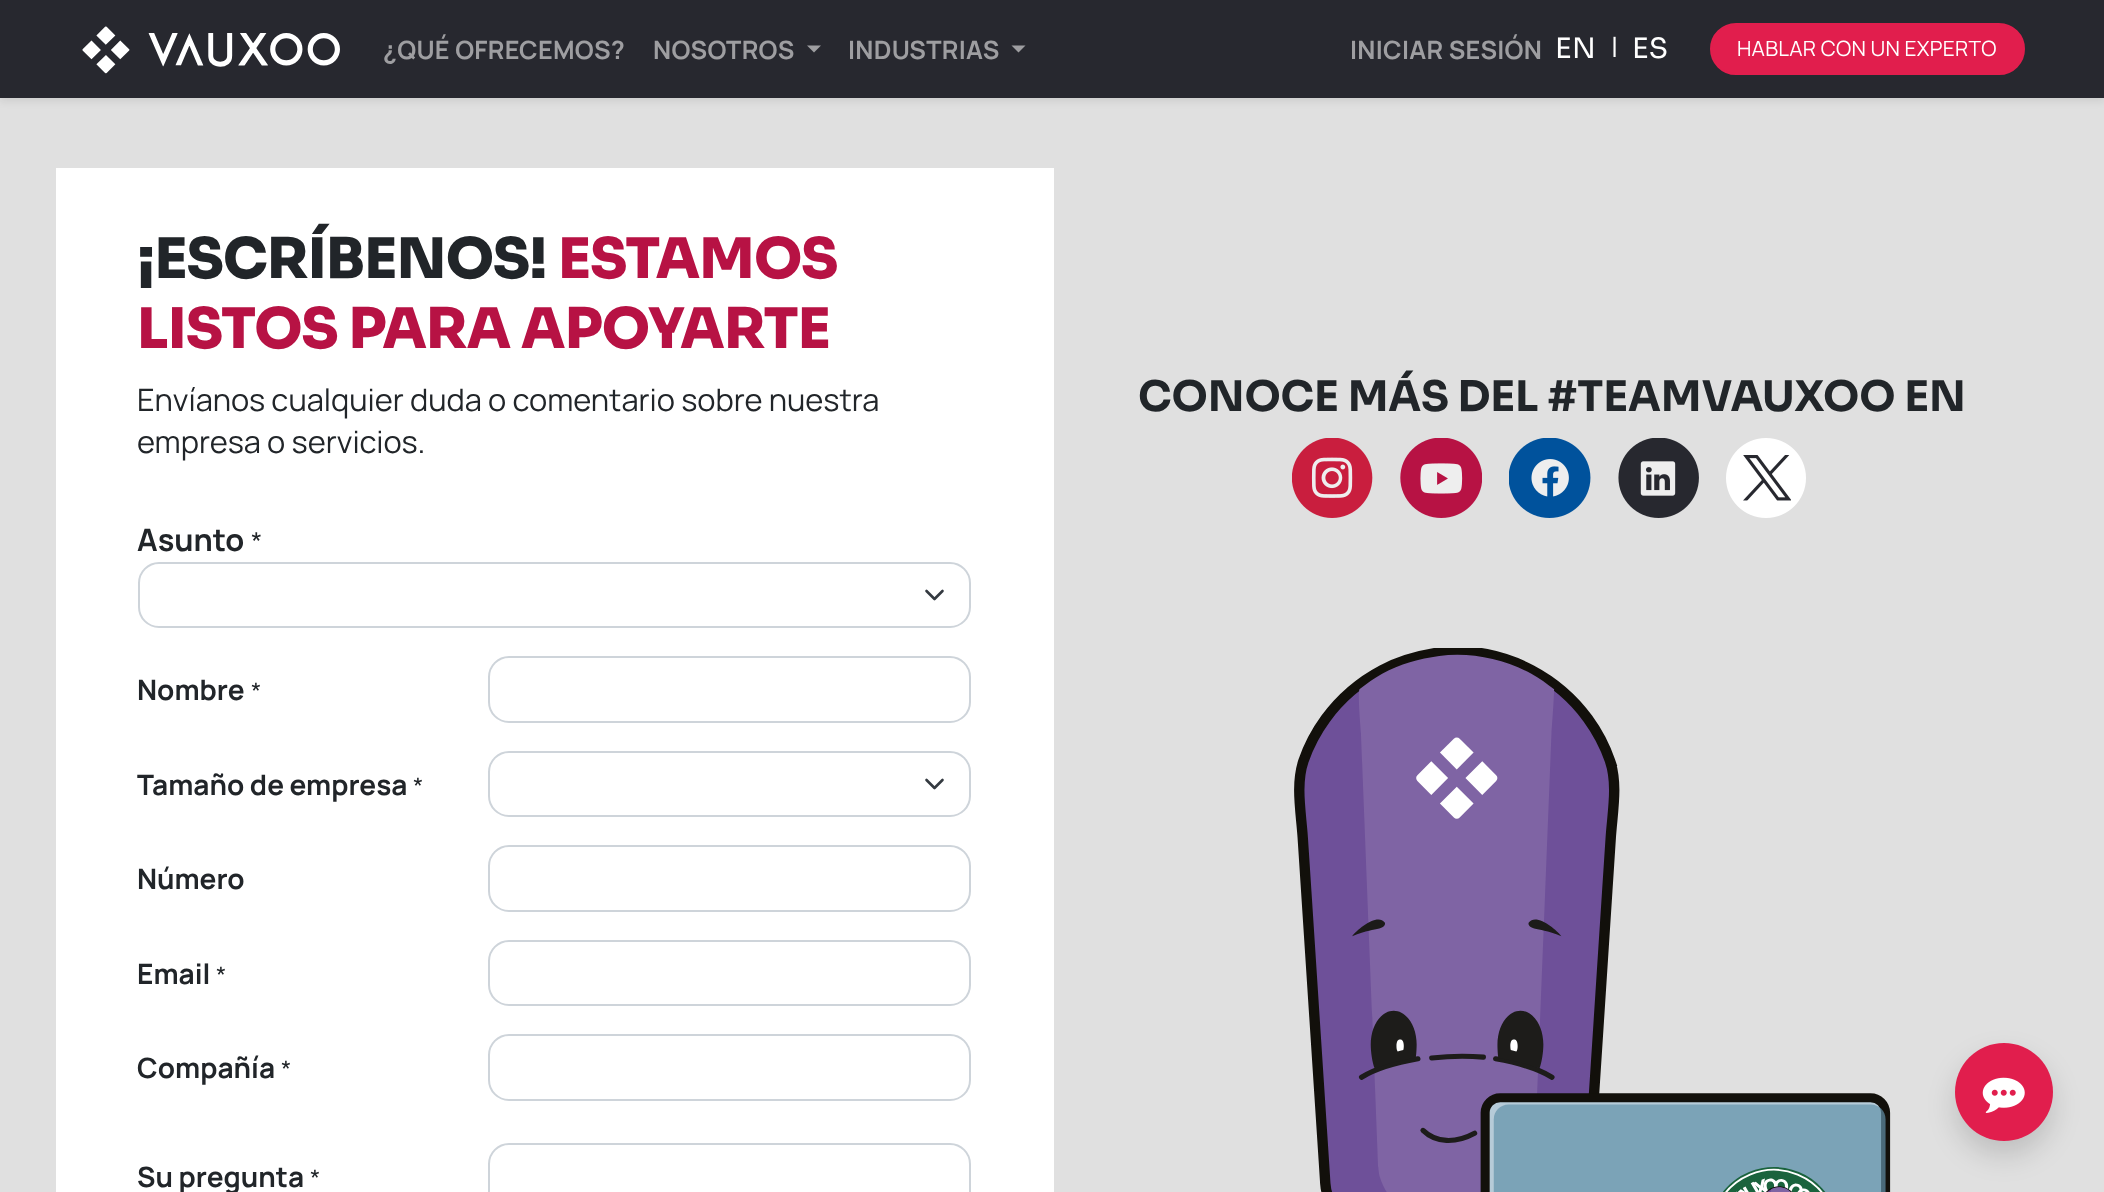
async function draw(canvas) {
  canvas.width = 2104;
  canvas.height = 1192;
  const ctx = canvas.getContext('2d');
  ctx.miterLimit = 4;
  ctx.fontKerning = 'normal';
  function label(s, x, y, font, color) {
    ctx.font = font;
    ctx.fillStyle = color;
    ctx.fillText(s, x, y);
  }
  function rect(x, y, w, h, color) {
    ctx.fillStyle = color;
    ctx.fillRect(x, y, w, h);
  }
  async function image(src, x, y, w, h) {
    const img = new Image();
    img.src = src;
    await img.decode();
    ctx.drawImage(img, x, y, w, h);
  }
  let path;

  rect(0, 0, 2104, 1192, '#e0e0e0');
  ctx.fillStyle = '#00000012';
  ctx.filter = 'blur(3.5px)';
  ctx.beginPath();
  ctx.rect(0, 4, 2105, 98);
  ctx.fill();
  ctx.filter = 'none';
  rect(0, 0, 2104, 98, '#27282f');
  await image('assets/img1.png', 82, 26, 258, 48);
  ctx.letterSpacing = '0.25px';
  label('¿QUÉ OFRECEMOS?', 383, 59, 'bold 25.25px Manrope', '#9e9ea1');
  label('NOSOTROS', 653, 59, 'bold 25.25px Manrope', '#9e9ea1');
  path = new Path2D('M807 45.5H821L814 52.5Z');
  ctx.fill(path);
  label('INDUSTRIAS', 848, 59, 'bold 25.25px Manrope', '#9e9ea1');
  path = new Path2D('M1011.5 45.5H1025.5L1018.5 52.5Z');
  ctx.fill(path);
  label('INICIAR SESIÓN', 1350, 59, 'bold 25.25px Manrope', '#9e9ea1');
  label('EN', 1555, 58, '28px Sora', '#fff');
  ctx.letterSpacing = '0px';
  label('|', 1611, 57, '28px Manrope', '#fff');
  ctx.letterSpacing = '0.25px';
  label('ES', 1632, 58, '28px Sora', '#fff');
  ctx.fillStyle = '#e11e4d';
  ctx.beginPath();
  ctx.roundRect(1711, 24, 313, 50, 25);
  ctx.fill();
  ctx.strokeStyle = '#e11e4d';
  ctx.lineWidth = 2;
  ctx.stroke();
  label('HABLAR CON UN EXPERTO', 1737, 56, '21px Manrope', '#fff');
  path = new Path2D('M84 168H1026C1041.5 168 1054 180.5 1054 196V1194H56V196C56 180.5 68.5 168 84 168Z');
  ctx.fill(path);
  path = new Path2D('M84 196H1026V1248H84Z');
  ctx.strokeStyle = '#fff';
  ctx.lineWidth = 56;
  ctx.stroke(path);
  ctx.letterSpacing = '-0.7px';
  label('¡ESCRÍBENOS!', 137, 278, '800 56px Sora', '#212529');
  label('ESTAMOS', 558, 278, '800 56px Sora', '#b71244');
  label('LISTOS PARA APOYARTE', 137, 348, '800 56px Sora', '#b71244');
  ctx.letterSpacing = '0px';
  label('Envíanos cualquier duda o comentario sobre nuestra', 137, 411, '30.8px Manrope', '#212529');
  label('empresa o servicios.', 137, 453, '30.8px Manrope', '#212529');
  label('Asunto', 137, 551, 'bold 30.8px Manrope', '#212529');
  label('*', 251, 551, '26px Manrope', '#212529');
  path = new Path2D('M926.5 591L934.5 599L942.5 591');
  ctx.strokeStyle = '#343a40';
  ctx.lineWidth = 2.6;
  ctx.lineCap = 'round';
  ctx.lineJoin = 'round';
  ctx.stroke(path);
  ctx.beginPath();
  ctx.roundRect(139, 563, 831, 64, 20);
  ctx.strokeStyle = '#ced4da';
  ctx.lineWidth = 2;
  ctx.lineJoin = 'miter';
  ctx.stroke();
  label('Nombre', 137, 700, 'bold 28px Manrope', '#212529');
  label('*', 251, 700, '24px Manrope', '#212529');
  ctx.beginPath();
  ctx.roundRect(489, 657, 481, 65, 20);
  ctx.stroke();
  label('Tamaño de empresa', 137, 795, 'bold 28px Manrope', '#212529');
  label('*', 413, 795, '24px Manrope', '#212529');
  path = new Path2D('M926.5 780L934.5 788L942.5 780');
  ctx.strokeStyle = '#343a40';
  ctx.lineWidth = 2.6;
  ctx.lineJoin = 'round';
  ctx.stroke(path);
  ctx.beginPath();
  ctx.roundRect(489, 752, 481, 64, 20);
  ctx.strokeStyle = '#ced4da';
  ctx.lineWidth = 2;
  ctx.lineJoin = 'miter';
  ctx.stroke();
  label('Número', 137, 889, 'bold 28px Manrope', '#212529');
  ctx.beginPath();
  ctx.roundRect(489, 846, 481, 65, 20);
  ctx.stroke();
  label('Email', 137, 984, 'bold 28px Manrope', '#212529');
  label('*', 216, 984, '24px Manrope', '#212529');
  ctx.beginPath();
  ctx.roundRect(489, 941, 481, 64, 20);
  ctx.stroke();
  label('Compañía', 137, 1078, 'bold 28px Manrope', '#212529');
  label('*', 281, 1078, '24px Manrope', '#212529');
  ctx.beginPath();
  ctx.roundRect(489, 1035, 481, 65, 20);
  ctx.stroke();
  label('Su pregunta', 137, 1187, 'bold 28px Manrope', '#212529');
  label('*', 310, 1187, '24px Manrope', '#212529');
  ctx.beginPath();
  ctx.roundRect(489, 1144, 481, 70, 20);
  ctx.stroke();
  ctx.letterSpacing = '-0.1px';
  label('CONOCE MÁS DEL #TEAMVAUXOO EN', 1138, 411, 'bold 42px Sora', '#212529');
  await image('assets/img2.png', 1292, 438, 81, 80);
  await image('assets/img3.png', 1400, 438, 82, 80);
  await image('assets/img4.png', 1509, 438, 82, 80);
  await image('assets/img5.png', 1618, 438, 81, 80);
  await image('assets/img6.png', 1726, 438, 80, 80);
  await image('assets/img7.png', 1294, 648, 597, 544);
  ctx.fillStyle = '#00000026';
  ctx.filter = 'blur(14px)';
  ctx.beginPath();
  ctx.roundRect(1955, 1057, 98, 98, 49);
  ctx.fill();
  ctx.filter = 'none';
  ctx.fillStyle = '#e11e4d';
  ctx.beginPath();
  ctx.arc(2004, 1092, 49, 0, 2 * Math.PI);
  ctx.fill();
  await image('assets/img8.png', 1982, 1077, 43, 36);
}

draw(document.querySelector('canvas'));
